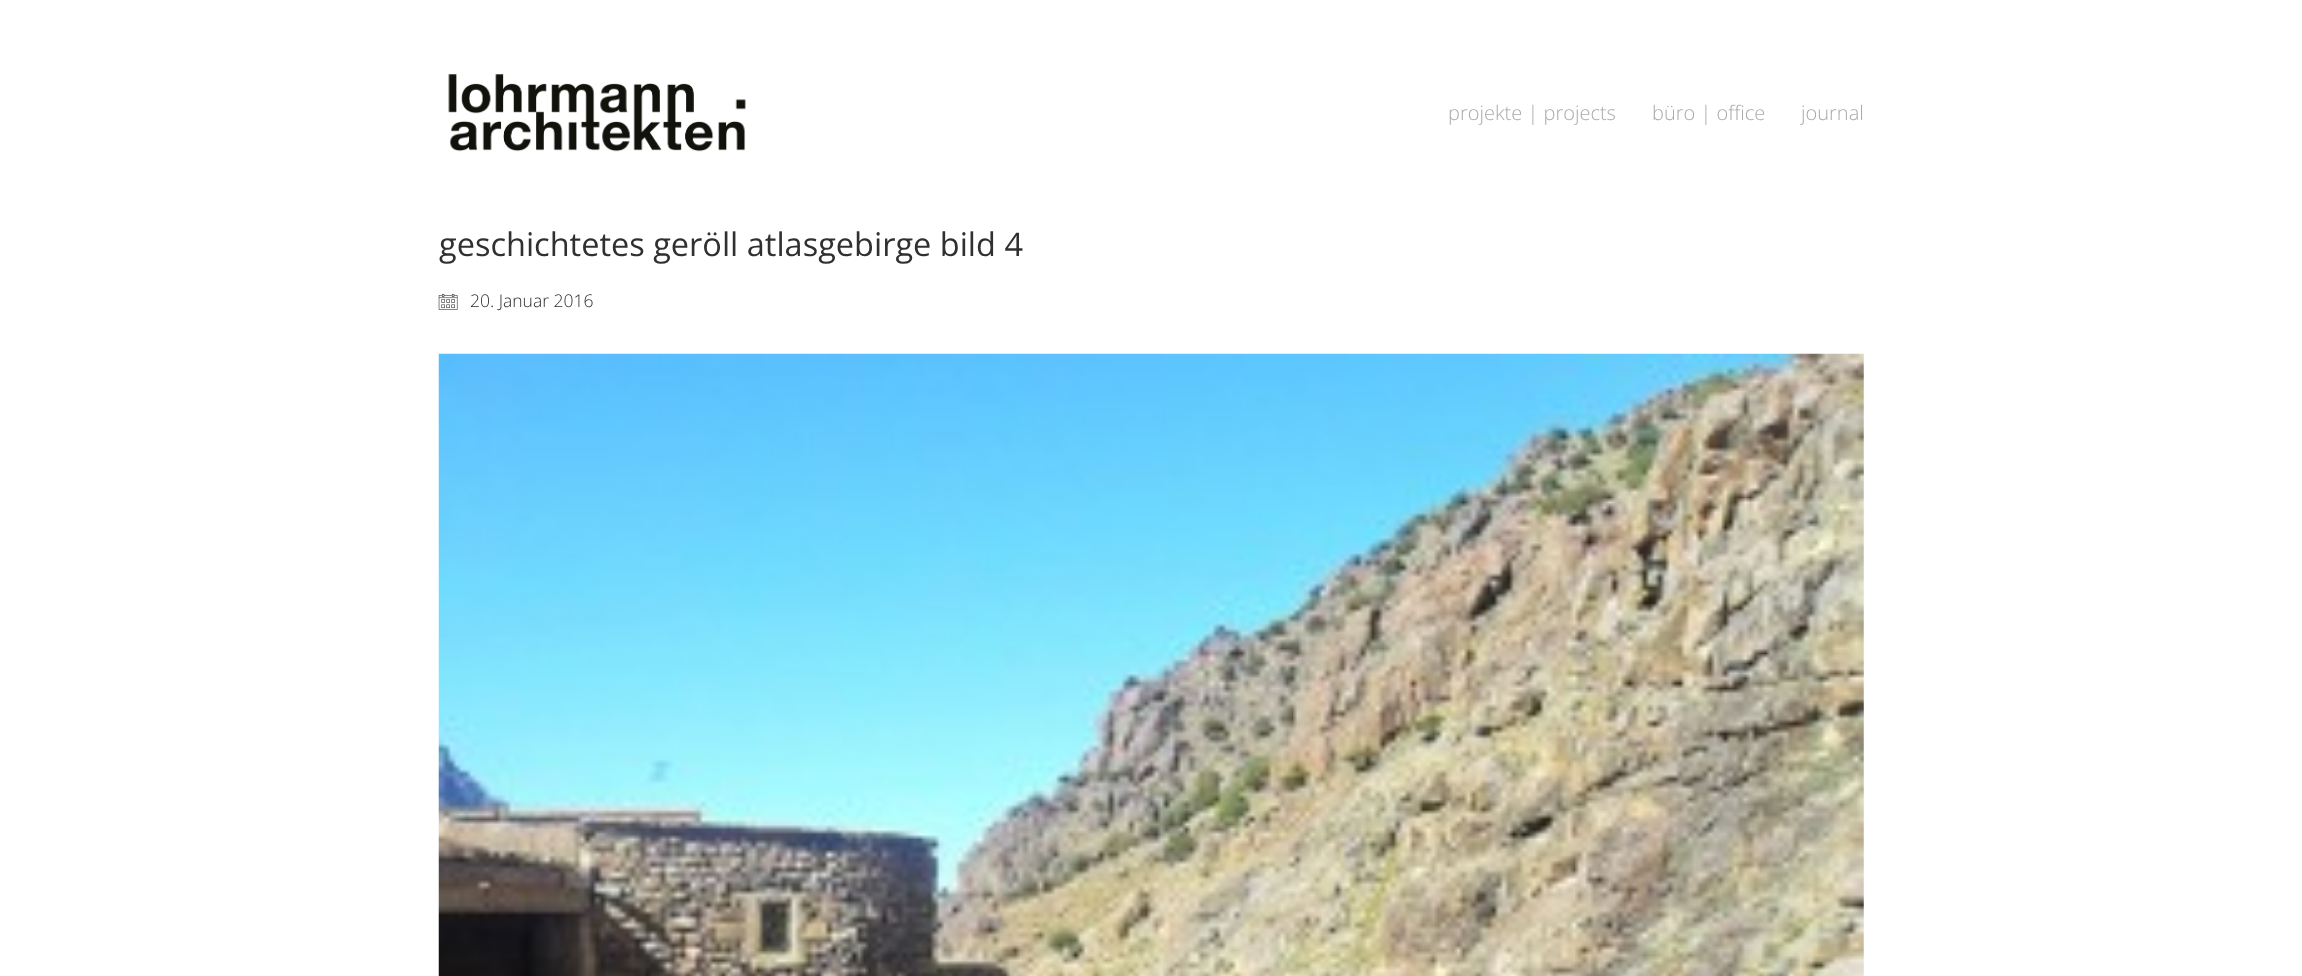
async function draw(canvas) {
  canvas.width = 2302;
  canvas.height = 976;
  const ctx = canvas.getContext('2d');
  ctx.miterLimit = 4;
  ctx.fontKerning = 'normal';
  function label(s, x, y, font, color) {
    ctx.font = font;
    ctx.fillStyle = color;
    ctx.fillText(s, x, y);
  }
  function rect(x, y, w, h, color) {
    ctx.fillStyle = color;
    ctx.fillRect(x, y, w, h);
  }
  async function image(src, x, y, w, h) {
    const img = new Image();
    img.src = src;
    await img.decode();
    ctx.drawImage(img, x, y, w, h);
  }

  rect(0, 0, 2302, 976, '#fff');
  await image('assets/img1.png', 448, 74, 298, 78);
  label('projekte | projects', 1448, 120, '300 20px Open Sans', '#aaa');
  label('büro | office', 1652, 120, '300 20px Open Sans', '#aaa');
  label('journal', 1801, 120, '300 20px Open Sans', '#aaa');
  label('geschichtetes geröll atlasgebirge bild 4', 439, 256, '32.5px Open Sans', '#303030');
  await image('assets/img2.png', 438, 293, 20, 17);
  label('20. Januar 2016', 470, 307, '300 17.5px Open Sans', '#303030');
  await image('assets/img3.png', 438, 353, 1426, 623);
}

draw(document.querySelector('canvas'));
